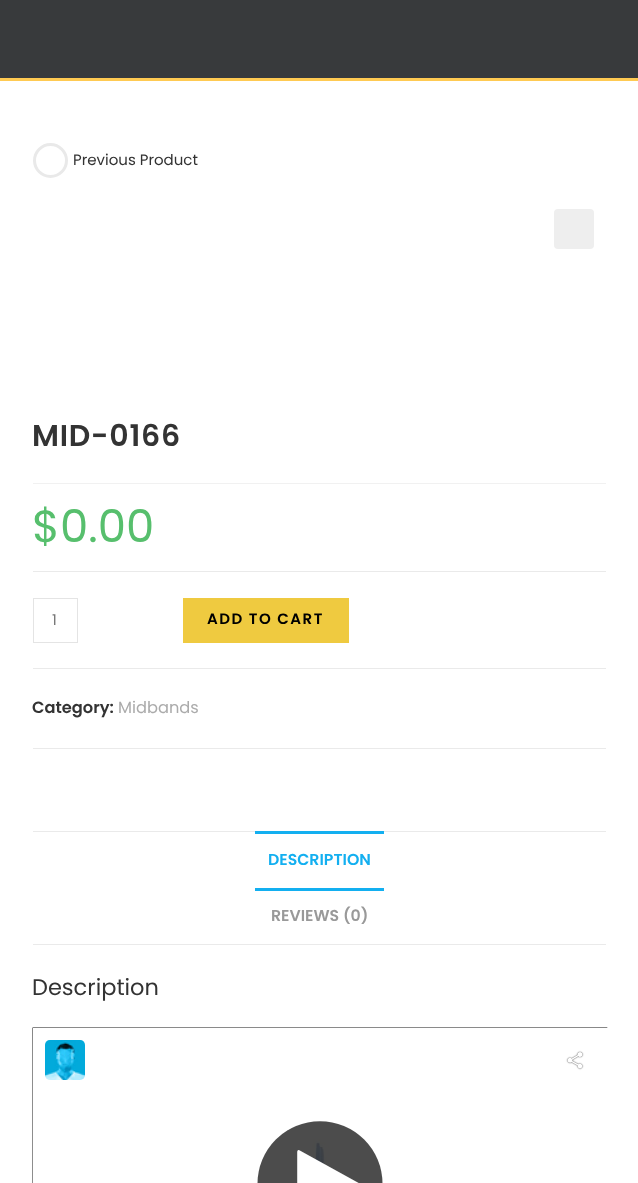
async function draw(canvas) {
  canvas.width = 638;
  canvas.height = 1183;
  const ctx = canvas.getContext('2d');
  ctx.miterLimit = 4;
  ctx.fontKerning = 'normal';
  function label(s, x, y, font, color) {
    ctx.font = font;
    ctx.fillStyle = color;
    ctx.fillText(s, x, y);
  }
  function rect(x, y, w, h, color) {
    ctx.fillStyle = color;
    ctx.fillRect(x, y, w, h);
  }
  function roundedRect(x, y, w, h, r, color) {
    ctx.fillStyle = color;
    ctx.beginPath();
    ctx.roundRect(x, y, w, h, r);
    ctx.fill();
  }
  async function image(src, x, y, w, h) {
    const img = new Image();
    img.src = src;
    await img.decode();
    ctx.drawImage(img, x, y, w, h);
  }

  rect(0, 0, 638, 1183, '#fff');
  rect(0, 0, 638, 78, '#383a3c');
  rect(0, 78, 638, 3, '#ffca52');
  ctx.beginPath();
  ctx.arc(50.5, 160.5, 16, 0, 2 * Math.PI);
  ctx.strokeStyle = '#e9e9e9';
  ctx.lineWidth = 3;
  ctx.stroke();
  label('Previous Product', 73, 165, '15px Poppins', '#333');
  roundedRect(554, 209, 40, 40, 4, '#eee');
  rect(33, 483, 573, 1, '#f1f1f1');
  ctx.letterSpacing = '0.75px';
  label('MID-0166', 32, 446, '600 30px Poppins', '#333');
  ctx.letterSpacing = '0px';
  label('$0.00', 32, 542, '45px Poppins', '#57bf6d');
  rect(33, 571, 573, 1, '#eaeaea');
  rect(33, 668, 573, 1, '#eaeaea');
  ctx.strokeStyle = '#e4e4e4';
  ctx.lineWidth = 1;
  ctx.strokeRect(33.5, 598.5, 44, 44);
  label('1', 52, 625, '15px Poppins', '#777');
  rect(183, 598, 166, 45, '#efca40');
  ctx.letterSpacing = '1.5px';
  label('ADD TO CART', 207, 624, '600 15px Poppins', '#000');
  rect(33, 748, 573, 1, '#eaeaea');
  ctx.letterSpacing = '0px';
  label('Category:', 32, 713, '600 16.25px Poppins', '#333');
  label('Midbands', 118, 713, '16.25px Poppins', '#ababab');
  rect(33, 831, 573, 1, '#eaeaea');
  rect(33, 944, 573, 1, '#eaeaea');
  rect(255, 831, 129, 3, '#13aff0');
  rect(255, 888, 129, 3, '#13aff0');
  label('DESCRIPTION', 268, 865, '600 15.75px Poppins', '#13aff0');
  label('REVIEWS (0)', 271, 921, '600 15.75px Poppins', '#999');
  label('Description', 32, 995, '22.5px Poppins', '#333');
  await image('assets/img1.png', 32, 1027, 576, 156);
}

draw(document.querySelector('canvas'));
